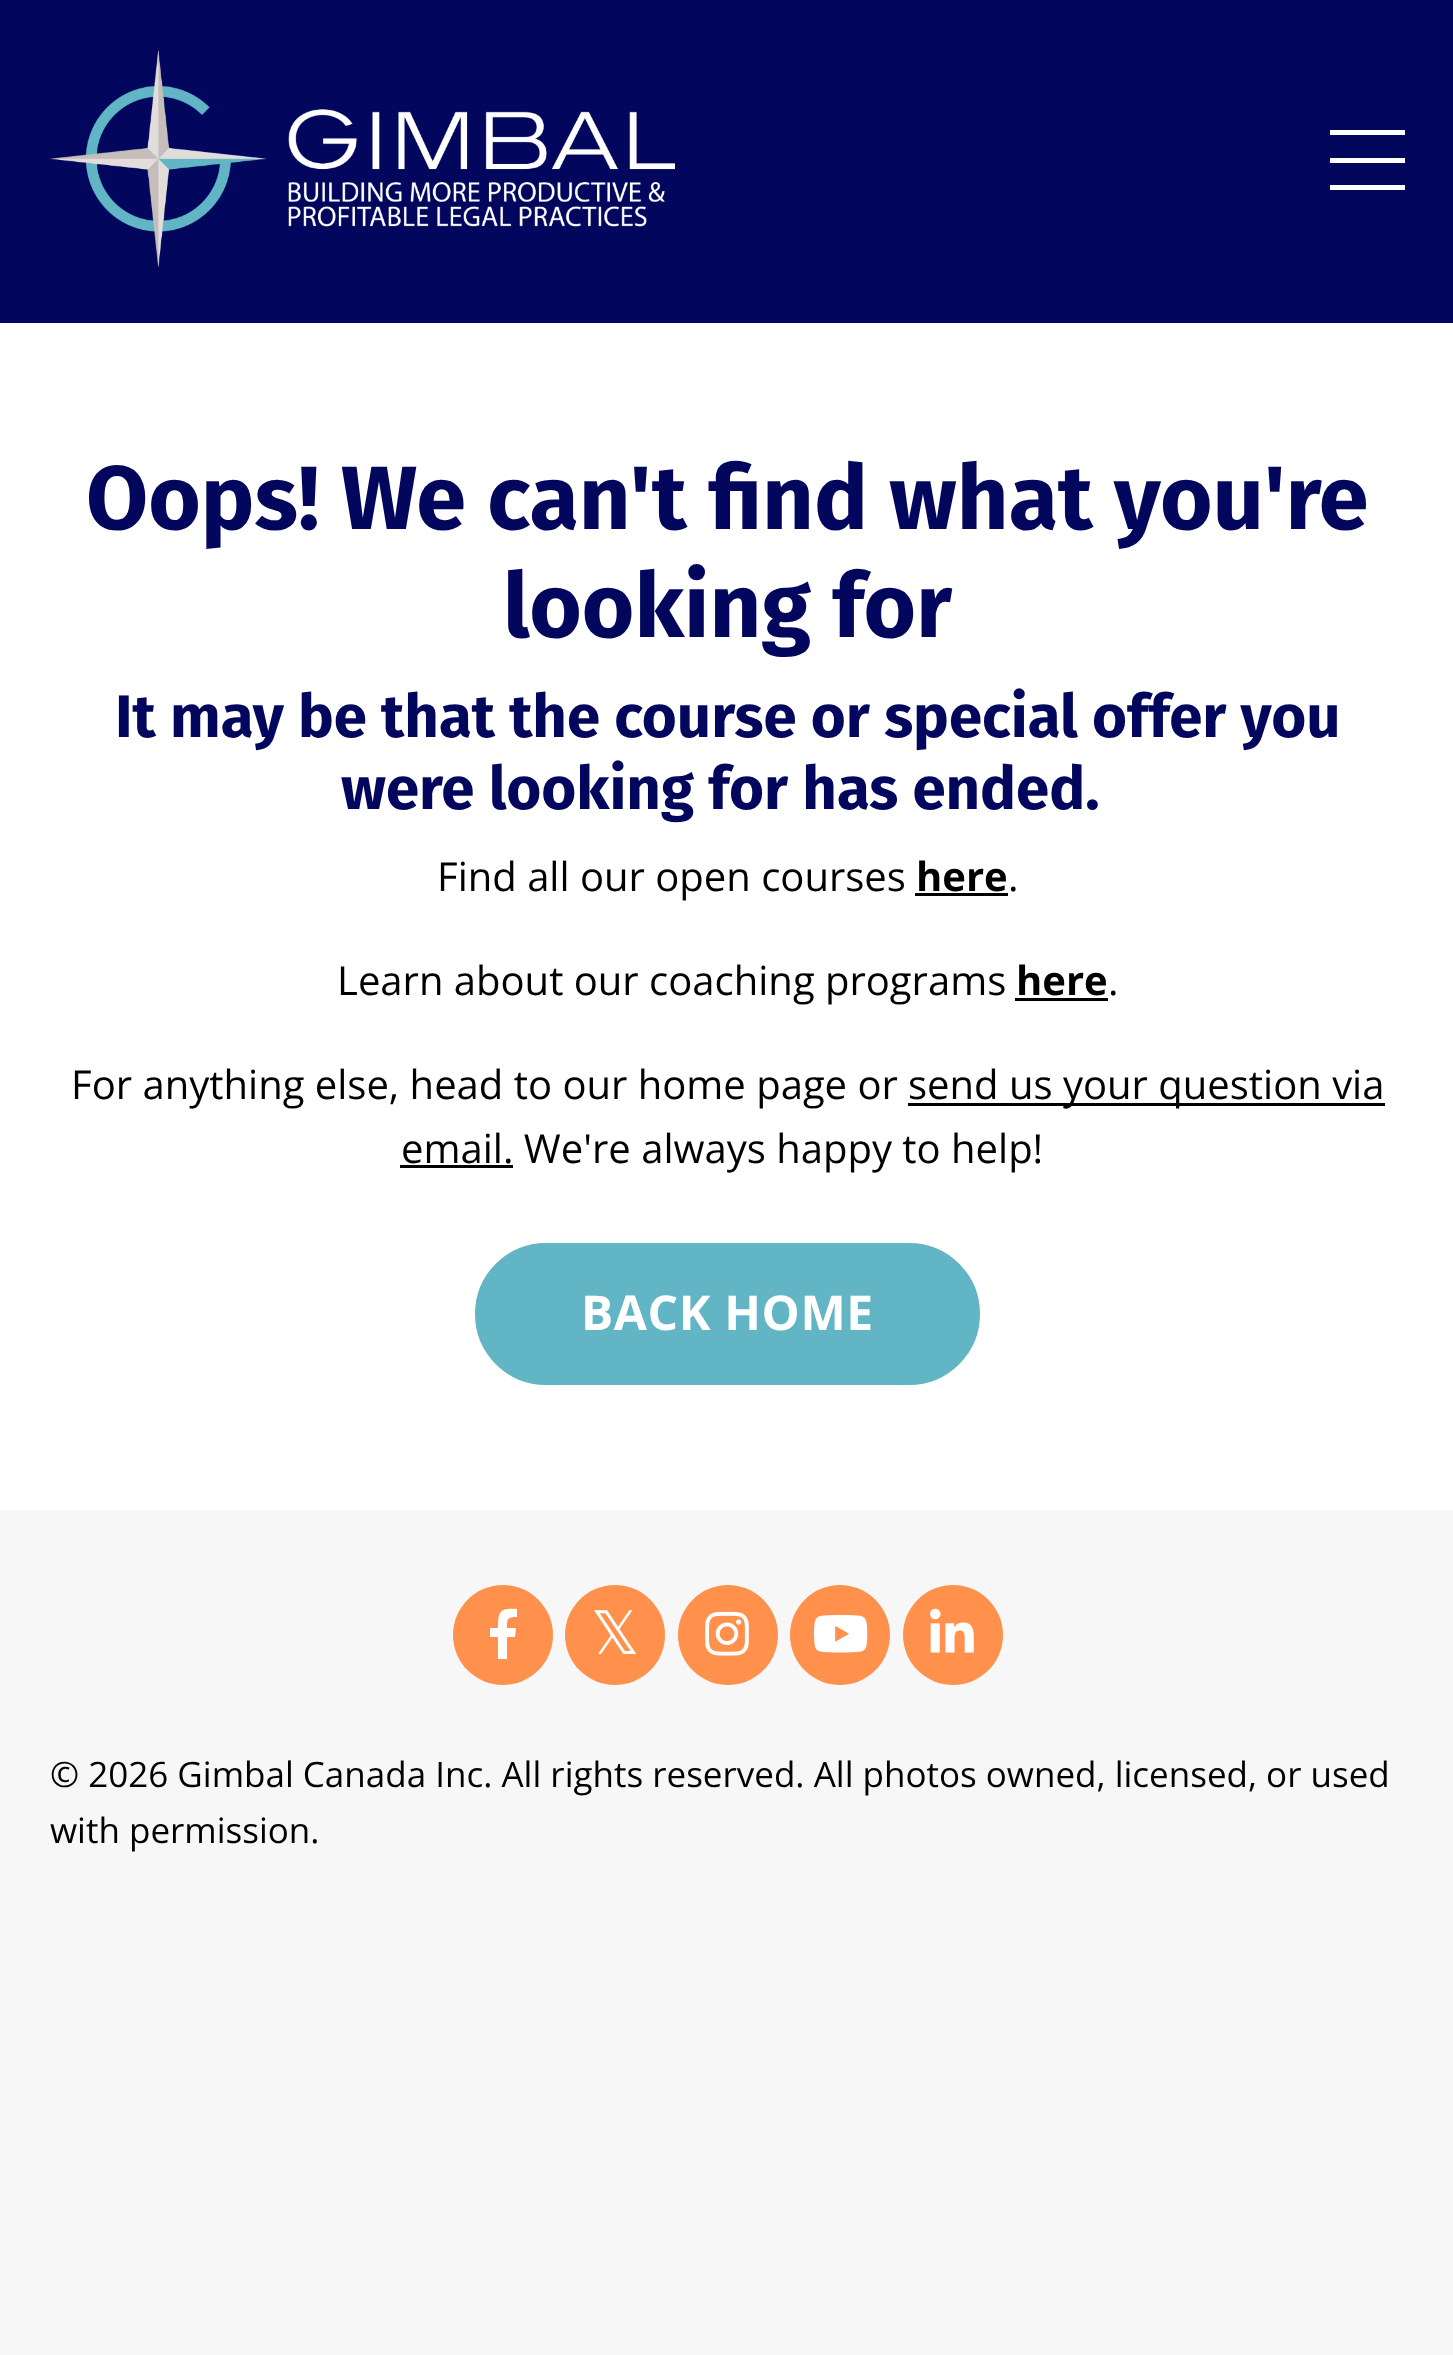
async function draw(canvas) {
  canvas.width = 1453;
  canvas.height = 2355;
  const ctx = canvas.getContext('2d');
  ctx.miterLimit = 4;
  ctx.fontKerning = 'normal';
  function label(s, x, y, font, color) {
    ctx.font = font;
    ctx.fillStyle = color;
    ctx.fillText(s, x, y);
  }
  function rect(x, y, w, h, color) {
    ctx.fillStyle = color;
    ctx.fillRect(x, y, w, h);
  }
  async function image(src, x, y, w, h) {
    const img = new Image();
    img.src = src;
    await img.decode();
    ctx.drawImage(img, x, y, w, h);
  }
  let path;

  rect(0, 0, 1453, 2355, '#f7f7f8');
  rect(0, 0, 1453, 323, '#02075d');
  await image('assets/img1.png', 50, 50, 625, 218);
  rect(1330, 130, 75, 5, '#fff');
  rect(1330, 158, 75, 5, '#fff');
  rect(1330, 185, 75, 5, '#fff');
  rect(0, 323, 1453, 1187, '#fff');
  label('Oops! We can\'t find what you\'re', 86, 529, 'bold 90px Fira Sans', '#02075d');
  label('looking for', 503, 637, 'bold 90px Fira Sans', '#02075d');
  label('It may be that the course or special offer you', 115, 737, 'bold 60px Fira Sans', '#02075d');
  label('were looking for has ended.', 341, 809, 'bold 60px Fira Sans', '#02075d');
  label('Find all our open courses', 437, 891, '40px Open Sans', '#000');
  label('here', 916, 891, 'bold 40px Open Sans', '#000');
  rect(915, 893, 93, 3, '#000');
  label('.', 1008, 891, '40px Open Sans', '#000');
  label('Learn about our coaching programs', 337, 995, '40px Open Sans', '#000');
  label('here', 1016, 995, 'bold 40px Open Sans', '#000');
  rect(1015, 998, 93, 3, '#000');
  label('.', 1108, 995, '40px Open Sans', '#000');
  label('For anything else, head to our home page or', 71, 1099, '40px Open Sans', '#000');
  rect(908, 1103, 477, 3, '#000');
  label('send us your question via', 908, 1099, '40px Open Sans', '#000');
  rect(400, 1165, 113, 3, '#000');
  label('email. We\'re always happy to help!', 401, 1163, '40px Open Sans', '#000');
  ctx.fillStyle = '#61b5c5';
  ctx.beginPath();
  ctx.roundRect(477.5, 1245.5, 500, 137, 68.5);
  ctx.fill();
  ctx.strokeStyle = '#61b5c5';
  ctx.lineWidth = 5;
  ctx.stroke();
  ctx.letterSpacing = '0.6px';
  label('BACK HOME', 581, 1330, 'bold 48px Open Sans', '#fff');
  ctx.fillStyle = '#ff914d';
  ctx.beginPath();
  ctx.arc(503, 1635, 50, 0, 2 * Math.PI);
  ctx.fill();
  ctx.fillStyle = '#fff';
  path = new Path2D('M515 1637H507V1659H498V1637H490V1628H498C498 1611 500 1608 517 1609V1617C507 1617 507 1619 507 1628H516Z');
  ctx.fill(path);
  ctx.fillStyle = '#ff914d';
  ctx.beginPath();
  ctx.arc(615, 1635, 50, 0, 2 * Math.PI);
  ctx.fill();
  ctx.letterSpacing = '0px';
  label('𝕏', 591, 1654, '60px DejaVu Sans', '#fff');
  ctx.fillStyle = '#ff914d';
  ctx.beginPath();
  ctx.arc(728, 1635, 50, 0, 2 * Math.PI);
  ctx.fill();
  await image('assets/img2.png', 705, 1611, 44, 45);
  ctx.beginPath();
  ctx.arc(840, 1635, 50, 0, 2 * Math.PI);
  ctx.fill();
  await image('assets/img3.png', 813, 1615, 55, 38);
  ctx.beginPath();
  ctx.arc(953, 1635, 50, 0, 2 * Math.PI);
  ctx.fill();
  await image('assets/img4.png', 930, 1608, 44, 45);
  label('© 2026 Gimbal Canada Inc. All rights reserved. All photos owned, licensed, or used', 50, 1787, '35px Open Sans', '#000');
  label('with permission.', 50, 1843, '35px Open Sans', '#000');
}

draw(document.querySelector('canvas'));
